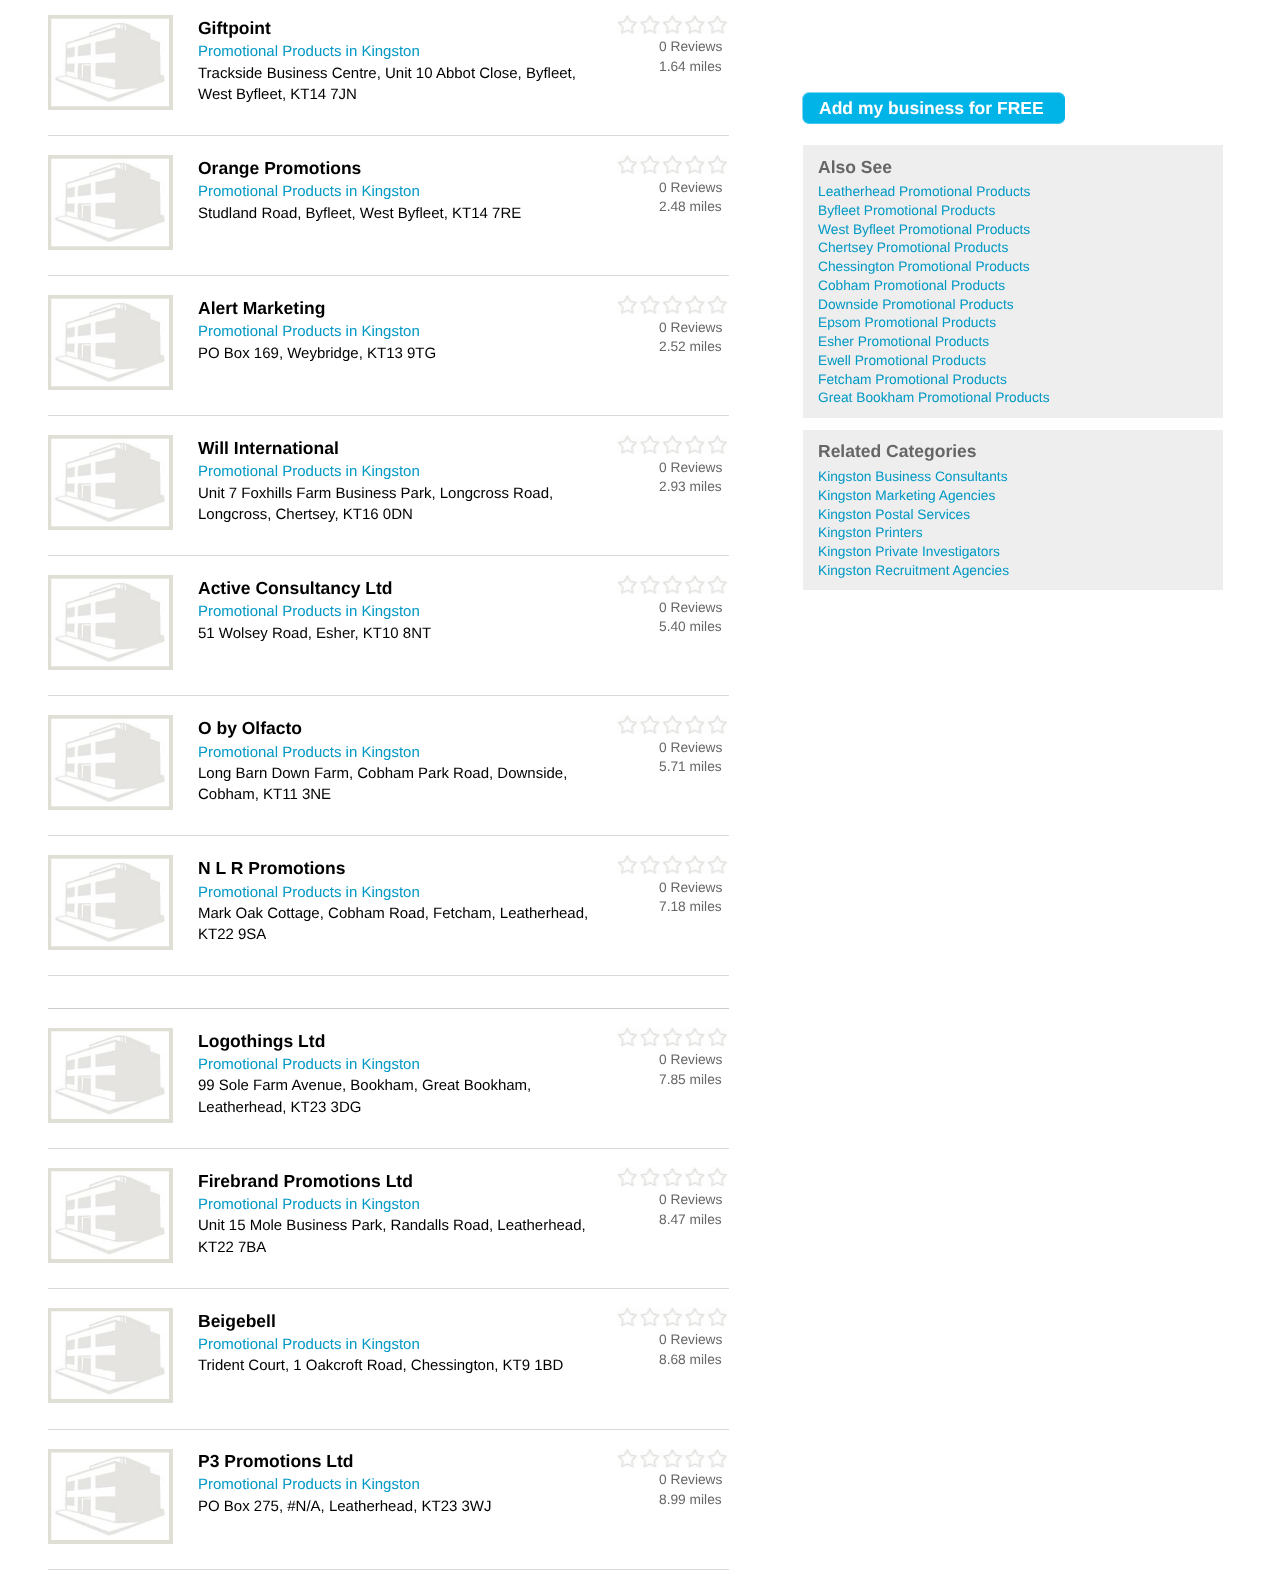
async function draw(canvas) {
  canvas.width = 1270;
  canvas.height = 1576;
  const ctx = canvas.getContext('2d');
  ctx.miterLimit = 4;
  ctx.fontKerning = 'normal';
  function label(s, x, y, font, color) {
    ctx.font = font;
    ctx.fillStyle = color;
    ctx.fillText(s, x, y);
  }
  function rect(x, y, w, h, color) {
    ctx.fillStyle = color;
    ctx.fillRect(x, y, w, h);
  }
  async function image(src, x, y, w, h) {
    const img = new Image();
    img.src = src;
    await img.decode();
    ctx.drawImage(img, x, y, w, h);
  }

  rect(0, 0, 1270, 1576, '#fff');
  ctx.strokeStyle = '#e0dfd6';
  ctx.lineWidth = 4;
  ctx.strokeRect(50, 17, 121, 91);
  await image('assets/img1.png', 51, 18, 118, 89);
  label('Giftpoint', 198, 34, 'bold 17.5px Liberation Sans', '#000');
  label('Promotional Products in Kingston', 198, 56, '15px Liberation Sans', '#0098c4');
  label('Trackside Business Centre, Unit 10 Abbot Close, Byfleet,', 198, 78, '15px Liberation Sans', '#000');
  label('West Byfleet, KT14 7JN', 198, 99, '15px Liberation Sans', '#000');
  rect(48, 135, 681, 1, '#dadada');
  await image('assets/img2.png', 617, 15, 111, 19);
  label('0 Reviews', 659, 51, '13.75px Liberation Sans', '#666');
  label('1.64 miles', 659, 71, '13.75px Liberation Sans', '#666');
  ctx.strokeRect(50, 157, 121, 91);
  await image('assets/img1.png', 51, 158, 118, 89);
  label('Orange Promotions', 198, 174, 'bold 17.5px Liberation Sans', '#000');
  label('Promotional Products in Kingston', 198, 196, '15px Liberation Sans', '#0098c4');
  label('Studland Road, Byfleet, West Byfleet, KT14 7RE', 198, 218, '15px Liberation Sans', '#000');
  rect(48, 275, 681, 1, '#dadada');
  await image('assets/img2.png', 617, 155, 111, 19);
  label('0 Reviews', 659, 192, '13.75px Liberation Sans', '#666');
  label('2.48 miles', 659, 211, '13.75px Liberation Sans', '#666');
  ctx.strokeRect(50, 297, 121, 91);
  await image('assets/img1.png', 51, 298, 118, 89);
  label('Alert Marketing', 198, 314, 'bold 17.5px Liberation Sans', '#000');
  label('Promotional Products in Kingston', 198, 336, '15px Liberation Sans', '#0098c4');
  label('PO Box 169, Weybridge, KT13 9TG', 198, 358, '15px Liberation Sans', '#000');
  rect(48, 415, 681, 1, '#dadada');
  await image('assets/img2.png', 617, 295, 111, 19);
  label('0 Reviews', 659, 332, '13.75px Liberation Sans', '#666');
  label('2.52 miles', 659, 351, '13.75px Liberation Sans', '#666');
  ctx.strokeRect(50, 437, 121, 91);
  await image('assets/img1.png', 51, 438, 118, 89);
  label('Will International', 198, 454, 'bold 17.5px Liberation Sans', '#000');
  label('Promotional Products in Kingston', 198, 476, '15px Liberation Sans', '#0098c4');
  label('Unit 7 Foxhills Farm Business Park, Longcross Road,', 198, 498, '15px Liberation Sans', '#000');
  label('Longcross, Chertsey, KT16 0DN', 198, 519, '15px Liberation Sans', '#000');
  rect(48, 555, 681, 1, '#dadada');
  await image('assets/img2.png', 617, 435, 111, 19);
  label('0 Reviews', 659, 472, '13.75px Liberation Sans', '#666');
  label('2.93 miles', 659, 491, '13.75px Liberation Sans', '#666');
  ctx.strokeRect(50, 577, 121, 91);
  await image('assets/img1.png', 51, 578, 118, 89);
  label('Active Consultancy Ltd', 198, 594, 'bold 17.5px Liberation Sans', '#000');
  label('Promotional Products in Kingston', 198, 616, '15px Liberation Sans', '#0098c4');
  label('51 Wolsey Road, Esher, KT10 8NT', 198, 638, '15px Liberation Sans', '#000');
  rect(48, 695, 681, 1, '#dadada');
  await image('assets/img3.png', 617, 575, 111, 19);
  label('0 Reviews', 659, 612, '13.75px Liberation Sans', '#666');
  label('5.40 miles', 659, 631, '13.75px Liberation Sans', '#666');
  ctx.strokeRect(50, 717, 121, 91);
  await image('assets/img1.png', 51, 718, 118, 89);
  label('O by Olfacto', 198, 734, 'bold 17.5px Liberation Sans', '#000');
  label('Promotional Products in Kingston', 198, 757, '15px Liberation Sans', '#0098c4');
  label('Long Barn Down Farm, Cobham Park Road, Downside,', 198, 778, '15px Liberation Sans', '#000');
  label('Cobham, KT11 3NE', 198, 799, '15px Liberation Sans', '#000');
  rect(48, 835, 681, 1, '#dadada');
  await image('assets/img4.png', 617, 715, 111, 19);
  label('0 Reviews', 659, 752, '13.75px Liberation Sans', '#666');
  label('5.71 miles', 659, 771, '13.75px Liberation Sans', '#666');
  ctx.strokeRect(50, 857, 121, 91);
  await image('assets/img1.png', 51, 858, 118, 89);
  label('N L R Promotions', 198, 874, 'bold 17.5px Liberation Sans', '#000');
  label('Promotional Products in Kingston', 198, 897, '15px Liberation Sans', '#0098c4');
  label('Mark Oak Cottage, Cobham Road, Fetcham, Leatherhead,', 198, 918, '15px Liberation Sans', '#000');
  label('KT22 9SA', 198, 939, '15px Liberation Sans', '#000');
  rect(48, 975, 681, 1, '#dadada');
  await image('assets/img2.png', 617, 855, 111, 19);
  label('0 Reviews', 659, 892, '13.75px Liberation Sans', '#666');
  label('7.18 miles', 659, 911, '13.75px Liberation Sans', '#666');
  rect(48, 1008, 681, 1, '#ccc');
  ctx.strokeRect(50, 1030, 121, 91);
  await image('assets/img5.png', 51, 1031, 118, 88);
  label('Logothings Ltd', 198, 1047, 'bold 17.5px Liberation Sans', '#000');
  label('Promotional Products in Kingston', 198, 1069, '15px Liberation Sans', '#0098c4');
  label('99 Sole Farm Avenue, Bookham, Great Bookham,', 198, 1090, '15px Liberation Sans', '#000');
  label('Leatherhead, KT23 3DG', 198, 1112, '15px Liberation Sans', '#000');
  rect(48, 1148, 681, 1, '#dadada');
  await image('assets/img6.png', 617, 1027, 111, 20);
  label('0 Reviews', 659, 1064, '13.75px Liberation Sans', '#666');
  label('7.85 miles', 659, 1084, '13.75px Liberation Sans', '#666');
  ctx.strokeRect(50, 1170, 121, 91);
  await image('assets/img5.png', 51, 1171, 118, 88);
  label('Firebrand Promotions Ltd', 198, 1187, 'bold 17.5px Liberation Sans', '#000');
  label('Promotional Products in Kingston', 198, 1209, '15px Liberation Sans', '#0098c4');
  label('Unit 15 Mole Business Park, Randalls Road, Leatherhead,', 198, 1230, '15px Liberation Sans', '#000');
  label('KT22 7BA', 198, 1252, '15px Liberation Sans', '#000');
  rect(48, 1288, 681, 1, '#dadada');
  await image('assets/img6.png', 617, 1167, 111, 20);
  label('0 Reviews', 659, 1204, '13.75px Liberation Sans', '#666');
  label('8.47 miles', 659, 1224, '13.75px Liberation Sans', '#666');
  ctx.strokeRect(50, 1310, 121, 91);
  await image('assets/img5.png', 51, 1311, 118, 88);
  label('Beigebell', 198, 1327, 'bold 17.5px Liberation Sans', '#000');
  label('Promotional Products in Kingston', 198, 1349, '15px Liberation Sans', '#0098c4');
  label('Trident Court, 1 Oakcroft Road, Chessington, KT9 1BD', 198, 1370, '15px Liberation Sans', '#000');
  rect(48, 1429, 681, 1, '#dadada');
  await image('assets/img6.png', 617, 1307, 111, 20);
  label('0 Reviews', 659, 1344, '13.75px Liberation Sans', '#666');
  label('8.68 miles', 659, 1364, '13.75px Liberation Sans', '#666');
  ctx.strokeRect(50, 1451, 121, 91);
  await image('assets/img7.png', 51, 1452, 118, 88);
  label('P3 Promotions Ltd', 198, 1467, 'bold 17.5px Liberation Sans', '#000');
  label('Promotional Products in Kingston', 198, 1489, '15px Liberation Sans', '#0098c4');
  label('PO Box 275, #N/A, Leatherhead, KT23 3WJ', 198, 1511, '15px Liberation Sans', '#000');
  rect(48, 1569, 681, 1, '#dadada');
  await image('assets/img8.png', 617, 1448, 111, 20);
  label('0 Reviews', 659, 1484, '13.75px Liberation Sans', '#666');
  label('8.99 miles', 659, 1504, '13.75px Liberation Sans', '#666');
  await image('assets/img9.png', 802, 92, 263, 32);
  label('Add my business for FREE', 819, 114, 'bold 17.5px Liberation Sans', '#fff');
  rect(803, 145, 420, 273, '#eee');
  label('Also See', 818, 173, 'bold 17.5px Liberation Sans', '#666');
  label('Leatherhead Promotional Products', 818, 196, '13.75px Liberation Sans', '#0098c4');
  label('Byfleet Promotional Products', 818, 215, '13.75px Liberation Sans', '#0098c4');
  label('West Byfleet Promotional Products', 818, 234, '13.75px Liberation Sans', '#0098c4');
  label('Chertsey Promotional Products', 818, 252, '13.75px Liberation Sans', '#0098c4');
  label('Chessington Promotional Products', 818, 271, '13.75px Liberation Sans', '#0098c4');
  label('Cobham Promotional Products', 818, 290, '13.75px Liberation Sans', '#0098c4');
  label('Downside Promotional Products', 818, 309, '13.75px Liberation Sans', '#0098c4');
  label('Epsom Promotional Products', 818, 327, '13.75px Liberation Sans', '#0098c4');
  label('Esher Promotional Products', 818, 346, '13.75px Liberation Sans', '#0098c4');
  label('Ewell Promotional Products', 818, 365, '13.75px Liberation Sans', '#0098c4');
  label('Fetcham Promotional Products', 818, 384, '13.75px Liberation Sans', '#0098c4');
  label('Great Bookham Promotional Products', 818, 402, '13.75px Liberation Sans', '#0098c4');
  rect(803, 430, 420, 160, '#eee');
  label('Related Categories', 818, 457, 'bold 17.5px Liberation Sans', '#666');
  label('Kingston Business Consultants', 818, 481, '13.75px Liberation Sans', '#0098c4');
  label('Kingston Marketing Agencies', 818, 500, '13.75px Liberation Sans', '#0098c4');
  label('Kingston Postal Services', 818, 519, '13.75px Liberation Sans', '#0098c4');
  label('Kingston Printers', 818, 537, '13.75px Liberation Sans', '#0098c4');
  label('Kingston Private Investigators', 818, 556, '13.75px Liberation Sans', '#0098c4');
  label('Kingston Recruitment Agencies', 818, 575, '13.75px Liberation Sans', '#0098c4');
}

draw(document.querySelector('canvas'));
